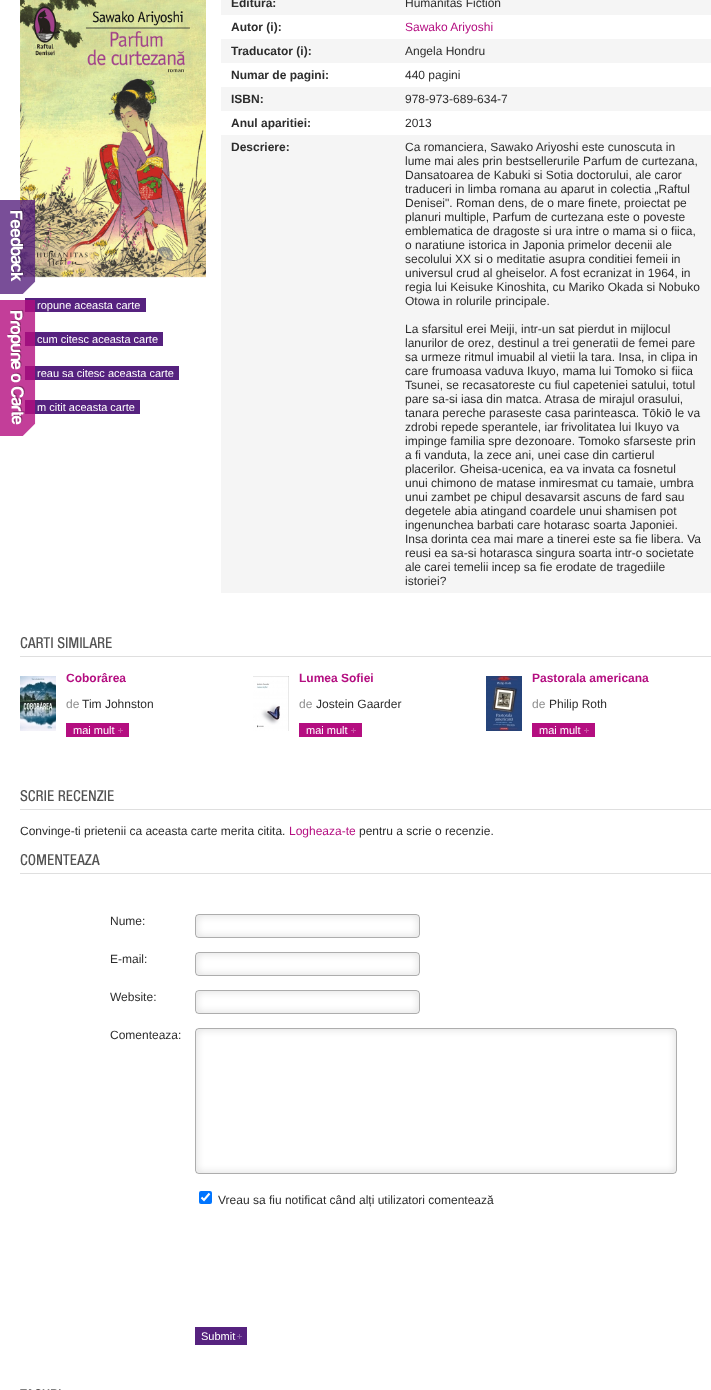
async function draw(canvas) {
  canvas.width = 711;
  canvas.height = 1390;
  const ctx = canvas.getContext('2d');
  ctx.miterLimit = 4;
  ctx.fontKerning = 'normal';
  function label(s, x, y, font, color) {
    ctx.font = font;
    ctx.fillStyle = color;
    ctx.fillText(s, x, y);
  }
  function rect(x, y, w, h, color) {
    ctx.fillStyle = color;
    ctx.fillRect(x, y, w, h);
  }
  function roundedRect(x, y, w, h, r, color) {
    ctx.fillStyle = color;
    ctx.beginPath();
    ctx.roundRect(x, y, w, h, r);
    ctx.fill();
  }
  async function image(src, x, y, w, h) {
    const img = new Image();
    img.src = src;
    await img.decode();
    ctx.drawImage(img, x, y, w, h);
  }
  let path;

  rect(0, 0, 711, 1390, '#fff');
  await image('assets/img2.png', 20, 0, 186, 278);
  await image('assets/img1.png', 0, 200, 36, 94);
  rect(221, 0, 490, 15, '#f5f5f5');
  label('Editura:', 231, 7, 'bold 12px Liberation Sans', '#2d2d2d');
  label('Humanitas Fiction', 405, 7, '12px Liberation Sans', '#2d2d2d');
  label('Autor (i):', 231, 31, 'bold 12px Liberation Sans', '#2d2d2d');
  label('Sawako Ariyoshi', 405, 31, '12px Liberation Sans', '#b40e80');
  rect(221, 39, 490, 24, '#f5f5f5');
  label('Traducator (i):', 231, 55, 'bold 12px Liberation Sans', '#2d2d2d');
  label('Angela Hondru', 405, 55, '12px Liberation Sans', '#2d2d2d');
  label('Numar de pagini:', 231, 79, 'bold 12px Liberation Sans', '#2d2d2d');
  label('440 pagini', 405, 79, '12px Liberation Sans', '#2d2d2d');
  rect(221, 87, 490, 24, '#f5f5f5');
  label('ISBN:', 231, 103, 'bold 12px Liberation Sans', '#2d2d2d');
  label('978-973-689-634-7', 405, 103, '12px Liberation Sans', '#2d2d2d');
  label('Anul aparitiei:', 231, 127, 'bold 12px Liberation Sans', '#2d2d2d');
  label('2013', 405, 127, '12px Liberation Sans', '#2d2d2d');
  rect(221, 135, 490, 458, '#f5f5f5');
  label('Descriere:', 231, 151, 'bold 12px Liberation Sans', '#2d2d2d');
  label('Ca romanciera, Sawako Ariyoshi este cunoscuta in', 405, 151, '12px Liberation Sans', '#2d2d2d');
  label('lume mai ales prin bestsellerurile Parfum de curtezana,', 405, 165, '12px Liberation Sans', '#2d2d2d');
  label('Dansatoarea de Kabuki si Sotia doctorului, ale caror', 405, 179, '12px Liberation Sans', '#2d2d2d');
  label('traduceri in limba romana au aparut in colectia „Raftul', 405, 193, '12px Liberation Sans', '#2d2d2d');
  label('Denisei". Roman dens, de o mare finete, proiectat pe', 405, 207, '12px Liberation Sans', '#2d2d2d');
  label('planuri multiple, Parfum de curtezana este o poveste', 405, 221, '12px Liberation Sans', '#2d2d2d');
  label('emblematica de dragoste si ura intre o mama si o fiica,', 405, 235, '12px Liberation Sans', '#2d2d2d');
  label('o naratiune istorica in Japonia primelor decenii ale', 405, 249, '12px Liberation Sans', '#2d2d2d');
  label('secolului XX si o meditatie asupra conditiei femeii in', 405, 263, '12px Liberation Sans', '#2d2d2d');
  label('universul crud al gheiselor. A fost ecranizat in 1964, in', 405, 277, '12px Liberation Sans', '#2d2d2d');
  label('regia lui Keisuke Kinoshita, cu Mariko Okada si Nobuko', 405, 291, '12px Liberation Sans', '#2d2d2d');
  label('Otowa in rolurile principale.', 405, 305, '12px Liberation Sans', '#2d2d2d');
  label('La sfarsitul erei Meiji, intr-un sat pierdut in mijlocul', 405, 333, '12px Liberation Sans', '#2d2d2d');
  label('lanurilor de orez, destinul a trei generatii de femei pare', 405, 347, '12px Liberation Sans', '#2d2d2d');
  label('sa urmeze ritmul imuabil al vietii la tara. Insa, in clipa in', 405, 361, '12px Liberation Sans', '#2d2d2d');
  label('care frumoasa vaduva Ikuyo, mama lui Tomoko si fiica', 405, 375, '12px Liberation Sans', '#2d2d2d');
  label('Tsunei, se recasatoreste cu fiul capeteniei satului, totul', 405, 389, '12px Liberation Sans', '#2d2d2d');
  label('pare sa-si iasa din matca. Atrasa de mirajul orasului,', 405, 403, '12px Liberation Sans', '#2d2d2d');
  label('tanara pereche paraseste casa parinteasca. Tōkiō le va', 405, 417, '12px Liberation Sans', '#2d2d2d');
  label('zdrobi repede sperantele, iar frivolitatea lui Ikuyo va', 405, 431, '12px Liberation Sans', '#2d2d2d');
  label('impinge familia spre dezonoare. Tomoko sfarseste prin', 405, 445, '12px Liberation Sans', '#2d2d2d');
  label('a fi vanduta, la zece ani, unei case din cartierul', 405, 459, '12px Liberation Sans', '#2d2d2d');
  label('placerilor. Gheisa-ucenica, ea va invata ca fosnetul', 405, 473, '12px Liberation Sans', '#2d2d2d');
  label('unui chimono de matase inmiresmat cu tamaie, umbra', 405, 487, '12px Liberation Sans', '#2d2d2d');
  label('unui zambet pe chipul desavarsit ascuns de fard sau', 405, 501, '12px Liberation Sans', '#2d2d2d');
  label('degetele abia atingand coardele unui shamisen pot', 405, 515, '12px Liberation Sans', '#2d2d2d');
  label('ingenunchea barbati care hotarasc soarta Japoniei.', 405, 529, '12px Liberation Sans', '#2d2d2d');
  label('Insa dorinta cea mai mare a tinerei este sa fie libera. Va', 405, 543, '12px Liberation Sans', '#2d2d2d');
  label('reusi ea sa-si hotarasca singura soarta intr-o societate', 405, 557, '12px Liberation Sans', '#2d2d2d');
  label('ale carei temelii incep sa fie erodate de tragediile', 405, 571, '12px Liberation Sans', '#2d2d2d');
  label('istoriei?', 405, 585, '12px Liberation Sans', '#2d2d2d');
  rect(25, 298, 121, 14, '#56227f');
  label('ropune aceasta carte', 37, 309, '11px Liberation Sans', '#fff');
  rect(25, 332, 138, 14, '#56227f');
  label('cum citesc aceasta carte', 37, 343, '11px Liberation Sans', '#fff');
  rect(25, 366, 154, 14, '#56227f');
  label('reau sa citesc aceasta carte', 37, 377, '11px Liberation Sans', '#fff');
  rect(25, 400, 115, 14, '#56227f');
  label('m citit aceasta carte', 37, 411, '11px Liberation Sans', '#fff');
  await image('assets/img3.png', 20, 637, 92, 12);
  rect(20, 656, 691, 1, '#dfdfdf');
  await image('assets/img4.png', 20, 676, 36, 55);
  label('Coborârea', 66, 682, 'bold 12px Liberation Sans', '#b40e80');
  label('de', 66, 708, '12px Liberation Sans', '#8e8e8e');
  label('Tim Johnston', 82, 708, '12px Liberation Sans', '#2d2d2d');
  rect(66, 723, 63, 14, '#b40e80');
  await image('assets/img5.png', 118, 728, 5, 5);
  label('mai mult', 73, 734, '11px Liberation Sans', '#fff');
  await image('assets/img6.png', 253, 676, 36, 55);
  label('Lumea Sofiei', 299, 682, 'bold 12px Liberation Sans', '#b40e80');
  label('de', 299, 708, '12px Liberation Sans', '#8e8e8e');
  label('Jostein Gaarder', 316, 708, '12px Liberation Sans', '#2d2d2d');
  rect(299, 723, 63, 14, '#b40e80');
  await image('assets/img5.png', 351, 728, 5, 5);
  label('mai mult', 306, 734, '11px Liberation Sans', '#fff');
  await image('assets/img7.png', 486, 676, 36, 55);
  label('Pastorala americana', 532, 682, 'bold 12px Liberation Sans', '#b40e80');
  label('de', 532, 708, '12px Liberation Sans', '#8e8e8e');
  label('Philip Roth', 549, 708, '12px Liberation Sans', '#2d2d2d');
  rect(532, 723, 63, 14, '#b40e80');
  await image('assets/img5.png', 584, 728, 5, 5);
  label('mai mult', 539, 734, '11px Liberation Sans', '#fff');
  await image('assets/img8.png', 20, 790, 94, 12);
  rect(20, 809, 691, 1, '#dfdfdf');
  label('Convinge-ti prietenii ca aceasta carte merita citita.', 20, 835, '12px Liberation Sans', '#2d2d2d');
  label('Logheaza-te', 289, 835, '12px Liberation Sans', '#b40e80');
  label('pentru a scrie o recenzie.', 359, 835, '12px Liberation Sans', '#2d2d2d');
  await image('assets/img9.png', 20, 854, 80, 12);
  rect(20, 873, 691, 1, '#dfdfdf');
  label('Nume:', 110, 925, '12px Liberation Sans', '#2d2d2d');
  await image('assets/img10.png', 195, 914, 225, 24);
  label('E-mail:', 110, 963, '12px Liberation Sans', '#2d2d2d');
  await image('assets/img10.png', 195, 952, 225, 24);
  label('Website:', 110, 1001, '12px Liberation Sans', '#2d2d2d');
  await image('assets/img10.png', 195, 990, 225, 24);
  label('Comenteaza:', 110, 1039, '12px Liberation Sans', '#2d2d2d');
  await image('assets/img11.png', 195, 1028, 482, 146);
  roundedRect(199, 1191, 13, 13, 2, '#0075ff');
  path = new Path2D('M201.5 1197.5L204 1200L209.5 1193.5');
  ctx.strokeStyle = '#fff';
  ctx.lineWidth = 2.1;
  ctx.stroke(path);
  label('Vreau sa fiu notificat când alți utilizatori comentează', 218, 1204, '12px Liberation Sans', '#2d2d2d');
  rect(195, 1327, 52, 18, '#56227f');
  await image('assets/img12.png', 237, 1334, 5, 5);
  label('Submit', 201, 1340, '11px Liberation Sans', '#fff');
  await image('assets/img13.png', 20, 1389, 41, 1);
  await image('assets/img14.png', 0, 300, 36, 136);
}

draw(document.querySelector('canvas'));
